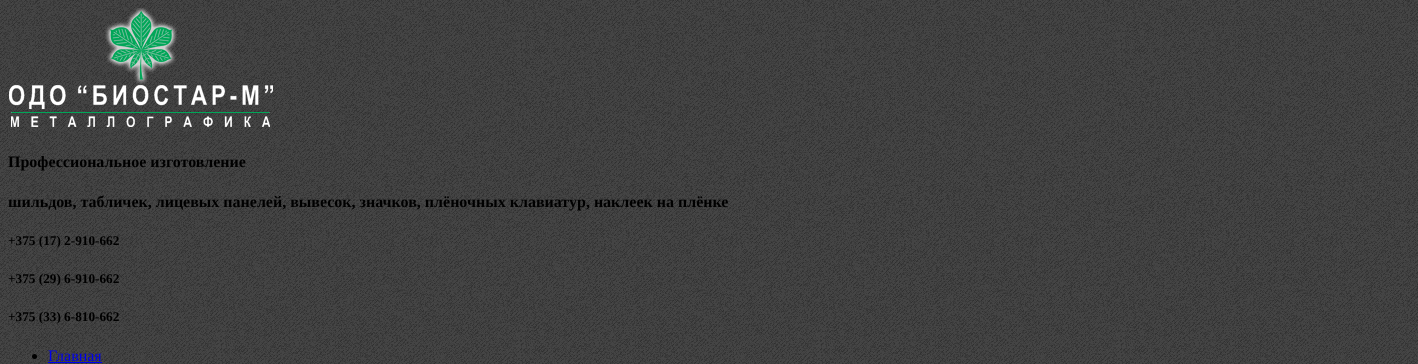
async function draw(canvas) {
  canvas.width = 1418;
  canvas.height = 364;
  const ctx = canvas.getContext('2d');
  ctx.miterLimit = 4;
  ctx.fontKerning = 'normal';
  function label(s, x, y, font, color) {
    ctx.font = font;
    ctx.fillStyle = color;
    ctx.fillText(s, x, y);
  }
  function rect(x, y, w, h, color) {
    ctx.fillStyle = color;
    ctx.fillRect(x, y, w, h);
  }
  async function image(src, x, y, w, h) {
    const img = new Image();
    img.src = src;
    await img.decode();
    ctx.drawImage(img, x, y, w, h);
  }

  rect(0, 0, 1418, 364, '#fff');
  await image('assets/img1.png', 0, 0, 1418, 364);
  await image('assets/img2.png', 9, 8, 264, 119);
  label('Профессиональное изготовление', 8, 167, 'bold 16px Liberation Serif', '#000');
  label('шильдов, табличек, лицевых панелей, вывесок, значков, плёночных клавиатур, наклеек на плёнке', 8, 207, 'bold 16px Liberation Serif', '#000');
  label('+375 (17) 2-910-662', 8, 245, 'bold 13.25px Liberation Serif', '#000');
  label('+375 (29) 6-910-662', 8, 283, 'bold 13.25px Liberation Serif', '#000');
  label('+375 (33) 6-810-662', 8, 321, 'bold 13.25px Liberation Serif', '#000');
  ctx.beginPath();
  ctx.arc(34.5, 356.5, 2.5, 0, 2 * Math.PI);
  ctx.fill();
  label('Главная', 48, 361, '16px Liberation Serif', '#00e');
  rect(48, 362, 54, 1, '#00e');
}

draw(document.querySelector('canvas'));
